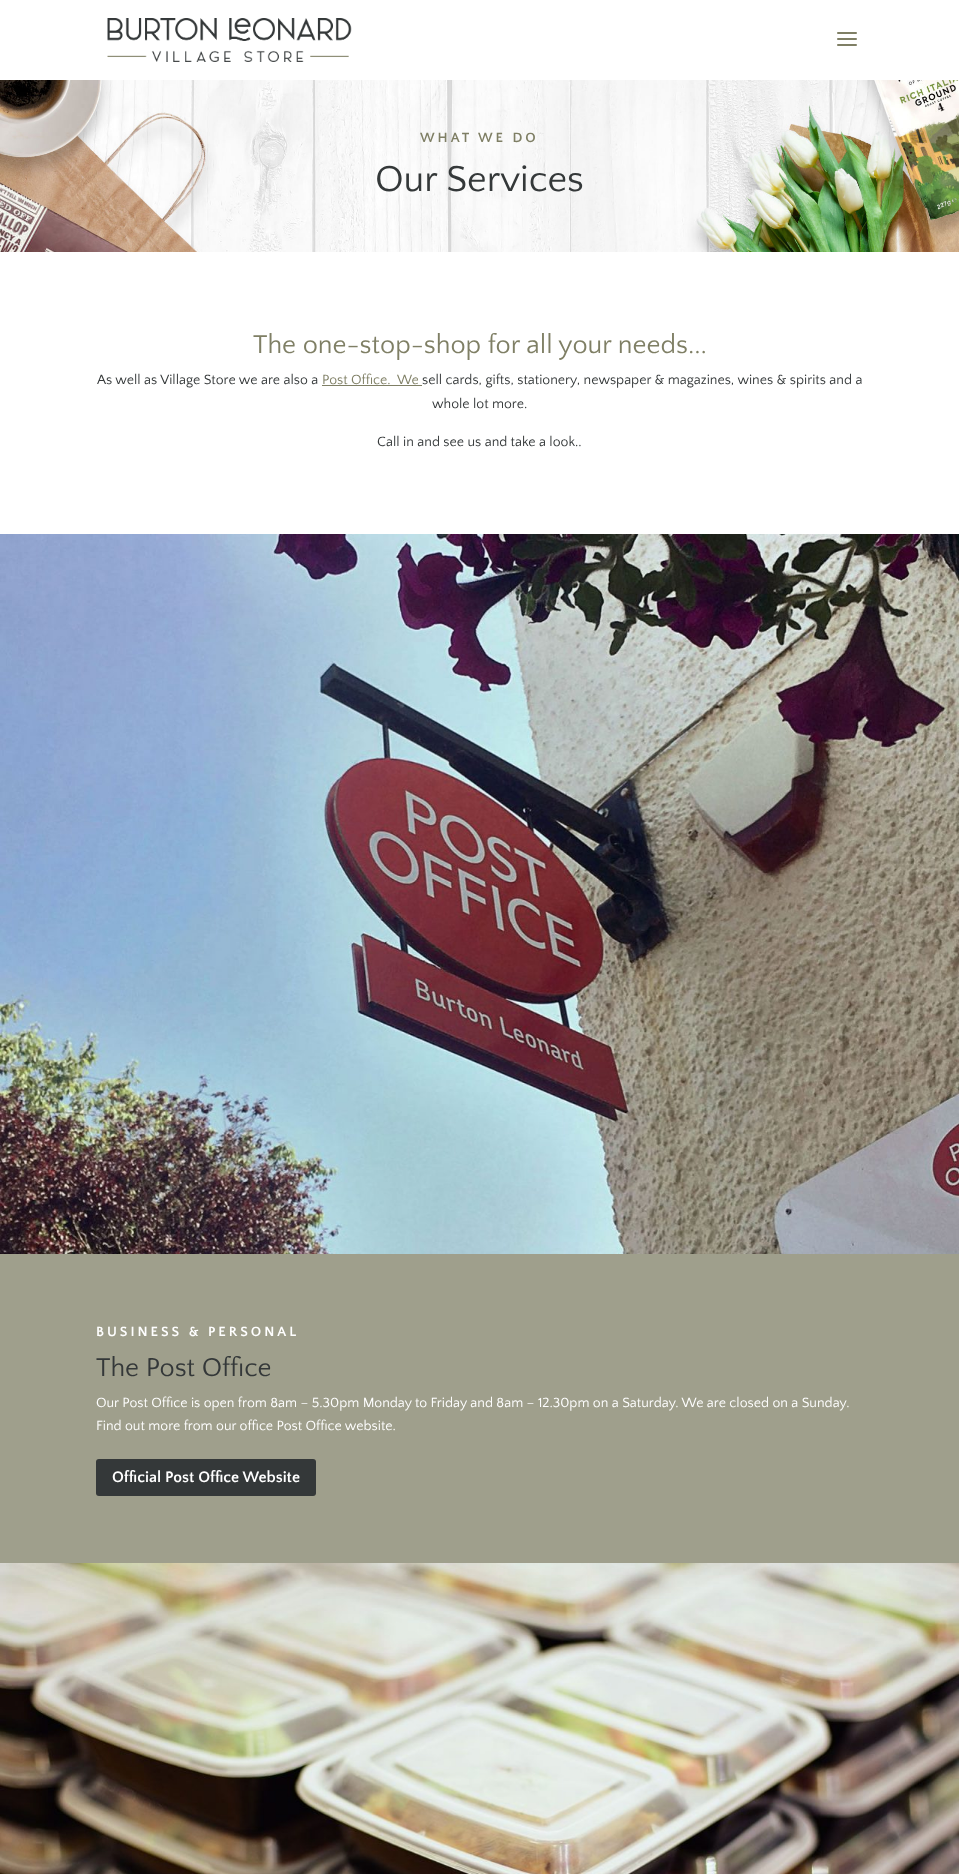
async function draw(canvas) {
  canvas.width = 959;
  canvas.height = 1874;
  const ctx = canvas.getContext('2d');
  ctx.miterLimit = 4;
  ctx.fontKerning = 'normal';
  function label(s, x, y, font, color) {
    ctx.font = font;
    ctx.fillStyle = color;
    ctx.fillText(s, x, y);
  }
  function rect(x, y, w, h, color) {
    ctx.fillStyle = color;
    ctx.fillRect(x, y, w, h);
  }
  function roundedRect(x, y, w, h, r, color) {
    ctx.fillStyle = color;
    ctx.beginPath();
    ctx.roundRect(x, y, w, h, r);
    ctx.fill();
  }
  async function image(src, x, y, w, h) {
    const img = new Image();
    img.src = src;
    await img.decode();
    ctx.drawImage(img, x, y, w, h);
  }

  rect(0, 0, 959, 1874, '#fff');
  await image('assets/img1.png', 107, 18, 245, 44);
  await image('assets/img2.png', 837, 32, 20, 14);
  await image('assets/img3.png', 0, 80, 959, 172);
  ctx.letterSpacing = '3px';
  label('WHAT WE DO', 420, 142, 'bold 14px Quattrocento Sans', '#7f7f65');
  ctx.letterSpacing = '0px';
  label('Our Services', 375, 191, '38px Quattrocento Sans', '#343839');
  label('The one-stop-shop for all your needs...', 253, 353, '27px Quattrocento Sans', '#7f7f65');
  label('As well as Village Store we are also a', 97, 384, '14px Quattrocento Sans', '#343839');
  label('Post Office.  We', 322, 384, '14px Quattrocento Sans', '#7f7f65');
  rect(322, 385, 100, 1, '#7f7f65');
  label('sell cards, gifts, stationery, newspaper & magazines, wines & spirits and a', 422, 384, '14px Quattrocento Sans', '#343839');
  label('whole lot more.', 432, 408, '14px Quattrocento Sans', '#343839');
  label('Call in and see us and take a look..', 377, 446, '14px Quattrocento Sans', '#343839');
  rect(0, 1254, 959, 309, '#9f9f8c');
  await image('assets/img4.png', 0, 534, 959, 720);
  ctx.letterSpacing = '3px';
  label('BUSINESS & PERSONAL', 96, 1336, 'bold 14px Quattrocento Sans', '#fff');
  ctx.letterSpacing = '0px';
  label('The Post Office', 96, 1376, '27px Quattrocento Sans', '#343839');
  label('Our Post Office is open from 8am – 5.30pm Monday to Friday and 8am – 12.30pm on a Saturday. We are closed on a Sunday.', 96, 1407, '14px Quattrocento Sans', '#fff');
  label('Find out more from our office Post Office website.', 96, 1430, '14px Quattrocento Sans', '#fff');
  roundedRect(96, 1459, 220, 37, 3, '#343839');
  label('Official Post Office Website', 112, 1482, 'bold 16px Quattrocento Sans', '#fff');
  await image('assets/img5.png', 0, 1563, 959, 311);
}

draw(document.querySelector('canvas'));
